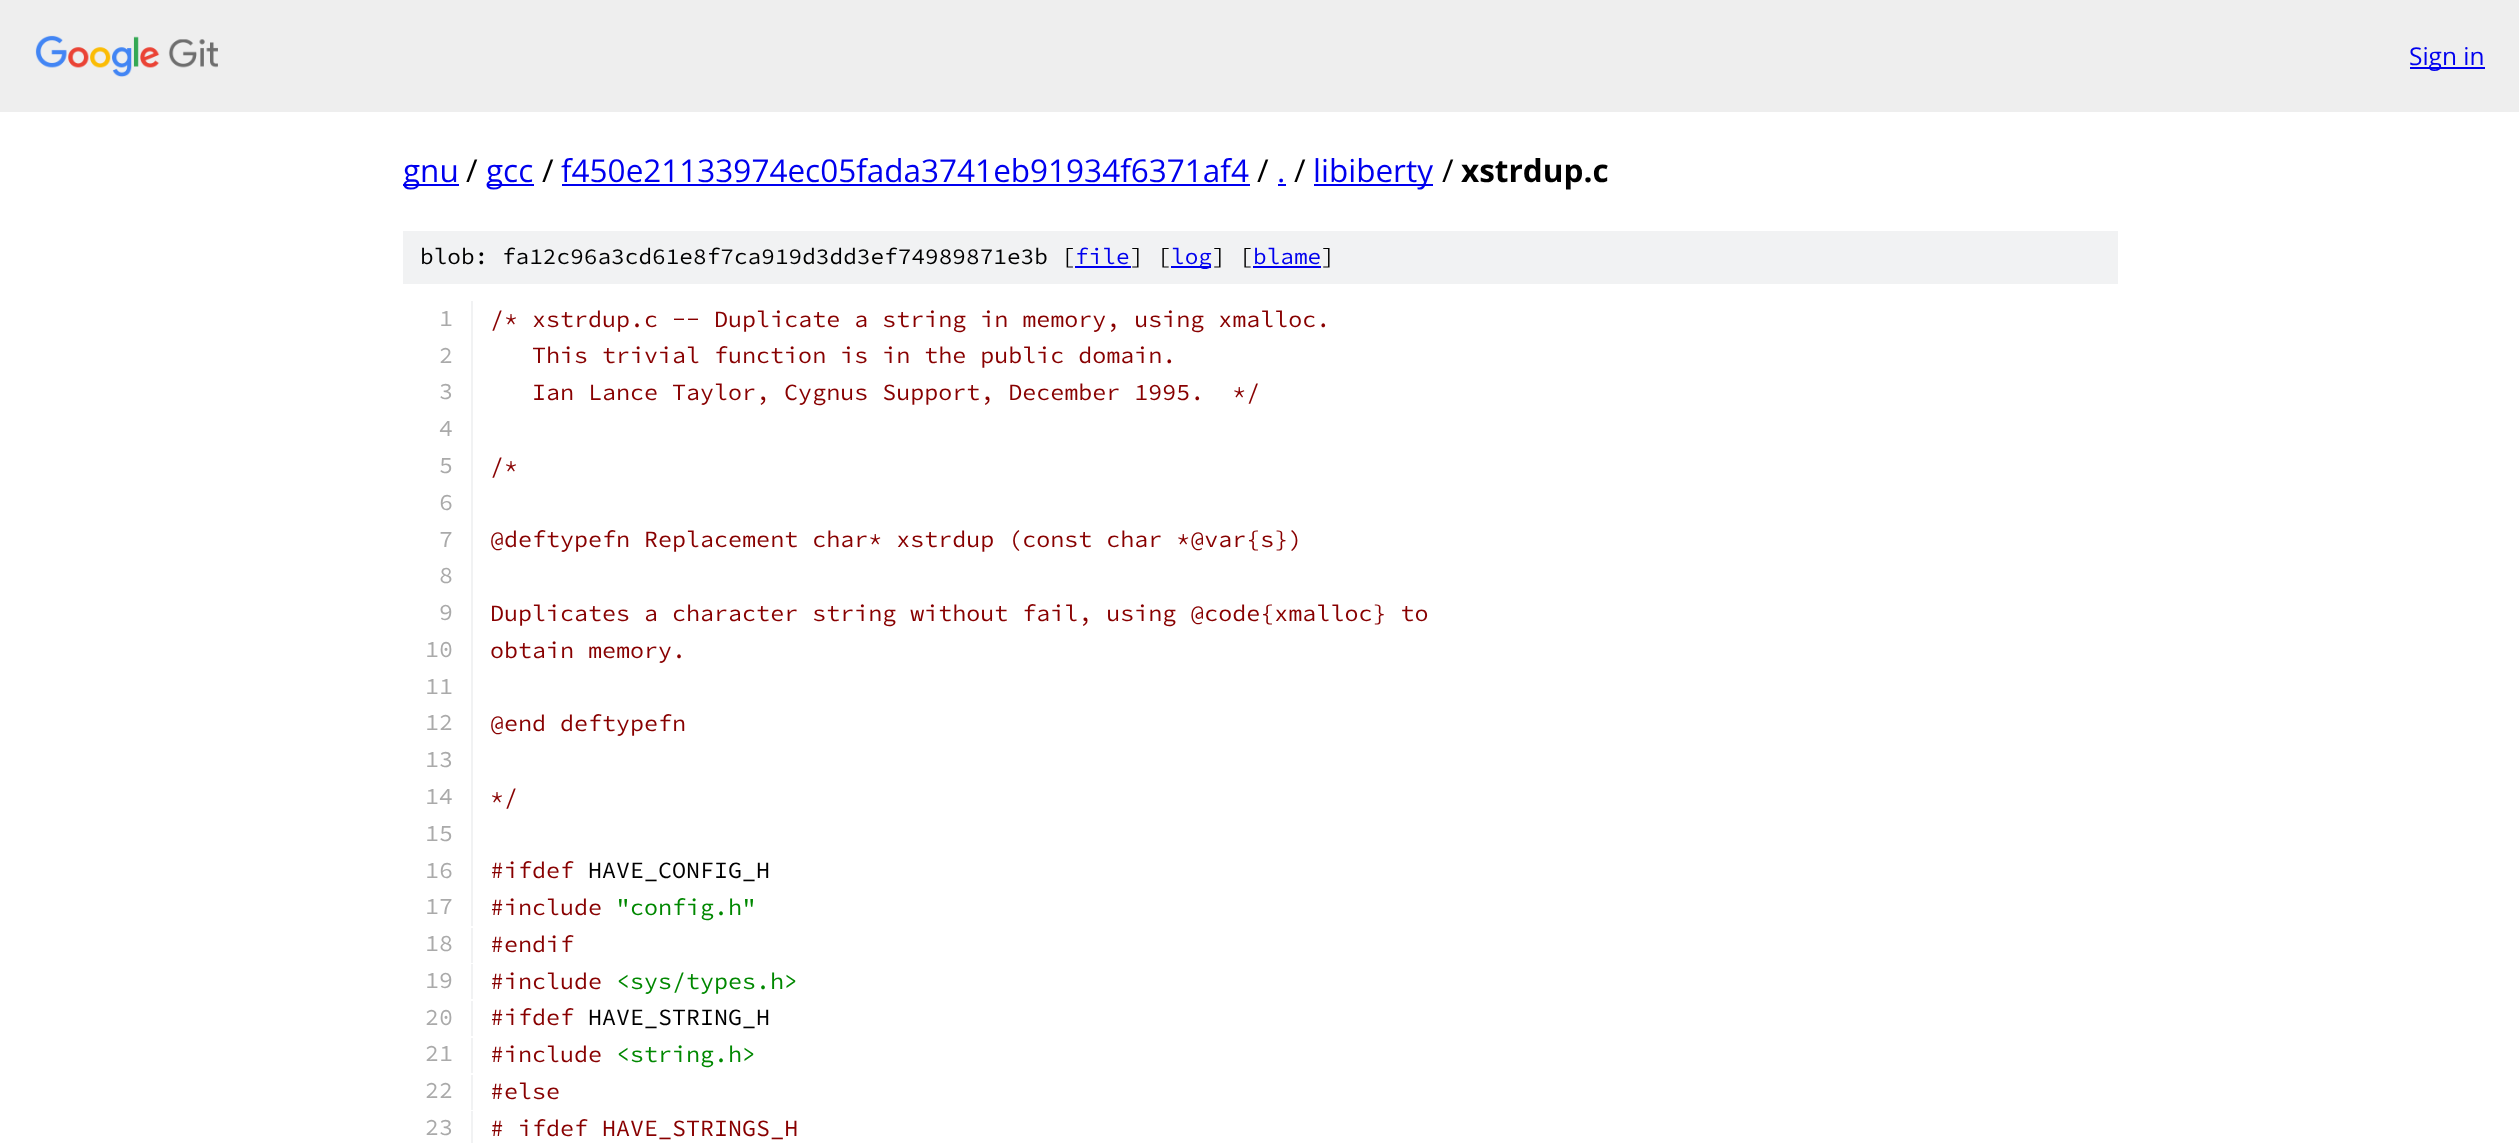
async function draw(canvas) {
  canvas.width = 2519;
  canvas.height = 1143;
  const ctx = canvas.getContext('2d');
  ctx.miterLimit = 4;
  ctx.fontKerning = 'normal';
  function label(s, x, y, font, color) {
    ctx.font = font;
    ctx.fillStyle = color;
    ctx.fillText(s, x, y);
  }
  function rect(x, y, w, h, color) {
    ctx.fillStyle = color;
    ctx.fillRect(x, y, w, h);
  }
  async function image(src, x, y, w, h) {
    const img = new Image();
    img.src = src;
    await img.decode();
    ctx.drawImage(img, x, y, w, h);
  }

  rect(0, 0, 2519, 1143, '#fff');
  rect(0, 0, 2519, 112, '#eee');
  await image('assets/img1.png', 35, 35, 183, 42);
  rect(2410, 67, 75, 2, '#00e');
  label('Sign in', 2409, 65, '24.5px Open Sans', '#00e');
  rect(403, 184, 56, 2, '#00e');
  label('gnu', 403, 182, '31.5px Open Sans', '#00e');
  label('/', 466, 182, '31.5px Open Sans', '#000');
  rect(487, 184, 47, 2, '#00e');
  label('gcc', 486, 182, '31.5px Open Sans', '#00e');
  label('/', 542, 182, '31.5px Open Sans', '#000');
  label('f450e21133974ec05fada3741eb91934f6371af4', 561, 182, '31.5px Open Sans', '#00e');
  rect(562, 184, 688, 2, '#00e');
  label('/', 1257, 182, '31.5px Open Sans', '#000');
  label('.', 1277, 182, '31.5px Open Sans', '#00e');
  rect(1278, 184, 8, 2, '#00e');
  label('/', 1294, 182, '31.5px Open Sans', '#000');
  rect(1314, 184, 119, 2, '#00e');
  label('libiberty', 1313, 182, '31.5px Open Sans', '#00e');
  label('/', 1442, 182, '31.5px Open Sans', '#000');
  label('xstrdup.c', 1461, 182, 'bold 31.5px Open Sans', '#000');
  rect(403, 231, 1715, 53, '#f1f2f3');
  label('blob: fa12c96a3cd61e8f7ca919d3dd3ef74989871e3b [', 420, 264, '200 22.75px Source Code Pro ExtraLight', '#000');
  label('file', 1075, 264, '200 22.75px Source Code Pro ExtraLight', '#00e');
  rect(1075, 266, 56, 2, '#00e');
  label('] [', 1130, 264, '200 22.75px Source Code Pro ExtraLight', '#000');
  rect(1171, 266, 40, 2, '#00e');
  label('log', 1171, 264, '200 22.75px Source Code Pro ExtraLight', '#00e');
  label('] [', 1212, 264, '200 22.75px Source Code Pro ExtraLight', '#000');
  label('blame', 1253, 264, '200 22.75px Source Code Pro ExtraLight', '#00e');
  rect(1253, 266, 68, 2, '#00e');
  label(']', 1321, 264, '200 22.75px Source Code Pro ExtraLight', '#000');
  rect(471, 301, 2, 625, '#f1f2f3');
  label('1', 439, 326, '200 23.35px Source Code Pro ExtraLight', '#aaa');
  label('/* xstrdup.c -- Duplicate a string in memory, using xmalloc.', 490, 327, '200 23.35px Source Code Pro ExtraLight', '#800');
  label('2', 439, 363, '200 23.35px Source Code Pro ExtraLight', '#aaa');
  label('This trivial function is in the public domain.', 532, 363, '200 23.35px Source Code Pro ExtraLight', '#800');
  label('3', 439, 399, '200 23.35px Source Code Pro ExtraLight', '#aaa');
  label('Ian Lance Taylor, Cygnus Support, December 1995.  */', 532, 400, '200 23.35px Source Code Pro ExtraLight', '#800');
  label('4', 439, 436, '200 23.35px Source Code Pro ExtraLight', '#aaa');
  label('5', 439, 473, '200 23.35px Source Code Pro ExtraLight', '#aaa');
  label('/*', 490, 474, '200 23.35px Source Code Pro ExtraLight', '#800');
  label('6', 439, 510, '200 23.35px Source Code Pro ExtraLight', '#aaa');
  label('7', 439, 547, '200 23.35px Source Code Pro ExtraLight', '#aaa');
  label('@deftypefn Replacement char* xstrdup (const char *@var{s})', 490, 547, '200 23.35px Source Code Pro ExtraLight', '#800');
  label('8', 439, 583, '200 23.35px Source Code Pro ExtraLight', '#aaa');
  label('9', 439, 620, '200 23.35px Source Code Pro ExtraLight', '#aaa');
  label('Duplicates a character string without fail, using @code{xmalloc} to', 490, 621, '200 23.35px Source Code Pro ExtraLight', '#800');
  label('10', 425, 657, '200 23.35px Source Code Pro ExtraLight', '#aaa');
  label('obtain memory.', 490, 658, '200 23.35px Source Code Pro ExtraLight', '#800');
  label('11', 425, 694, '200 23.35px Source Code Pro ExtraLight', '#aaa');
  label('12', 425, 730, '200 23.35px Source Code Pro ExtraLight', '#aaa');
  label('@end deftypefn', 490, 731, '200 23.35px Source Code Pro ExtraLight', '#800');
  label('13', 425, 767, '200 23.35px Source Code Pro ExtraLight', '#aaa');
  label('14', 425, 804, '200 23.35px Source Code Pro ExtraLight', '#aaa');
  label('*/', 490, 805, '200 23.35px Source Code Pro ExtraLight', '#800');
  label('15', 425, 841, '200 23.35px Source Code Pro ExtraLight', '#aaa');
  label('16', 425, 878, '200 23.35px Source Code Pro ExtraLight', '#aaa');
  label('#ifdef', 490, 878, '200 23.35px Source Code Pro ExtraLight', '#800');
  label('HAVE_CONFIG_H', 588, 878, '200 23.35px Source Code Pro ExtraLight', '#000');
  label('17', 425, 914, '200 23.35px Source Code Pro ExtraLight', '#aaa');
  label('#include', 490, 915, '200 23.35px Source Code Pro ExtraLight', '#800');
  label('"config.h"', 616, 915, '200 23.35px Source Code Pro ExtraLight', '#080');
  rect(471, 928, 2, 35, '#f1f2f3');
  label('18', 425, 951, '200 23.35px Source Code Pro ExtraLight', '#aaa');
  label('#endif', 490, 952, '200 23.35px Source Code Pro ExtraLight', '#800');
  rect(471, 964, 2, 35, '#f1f2f3');
  label('19', 425, 988, '200 23.35px Source Code Pro ExtraLight', '#aaa');
  label('#include', 490, 989, '200 23.35px Source Code Pro ExtraLight', '#800');
  label('<sys/types.h>', 616, 989, '200 23.35px Source Code Pro ExtraLight', '#080');
  rect(471, 1001, 2, 35, '#f1f2f3');
  label('20', 425, 1025, '200 23.35px Source Code Pro ExtraLight', '#aaa');
  label('#ifdef', 490, 1025, '200 23.35px Source Code Pro ExtraLight', '#800');
  label('HAVE_STRING_H', 588, 1025, '200 23.35px Source Code Pro ExtraLight', '#000');
  rect(471, 1038, 2, 35, '#f1f2f3');
  label('21', 425, 1061, '200 23.35px Source Code Pro ExtraLight', '#aaa');
  label('#include', 490, 1062, '200 23.35px Source Code Pro ExtraLight', '#800');
  label('<string.h>', 616, 1062, '200 23.35px Source Code Pro ExtraLight', '#080');
  rect(471, 1075, 2, 35, '#f1f2f3');
  label('22', 425, 1098, '200 23.35px Source Code Pro ExtraLight', '#aaa');
  label('#else', 490, 1099, '200 23.35px Source Code Pro ExtraLight', '#800');
  rect(471, 1111, 2, 32, '#f1f2f3');
  label('23', 425, 1135, '200 23.35px Source Code Pro ExtraLight', '#aaa');
  label('# ifdef HAVE_STRINGS_H', 490, 1136, '200 23.35px Source Code Pro ExtraLight', '#800');
}

draw(document.querySelector('canvas'));
